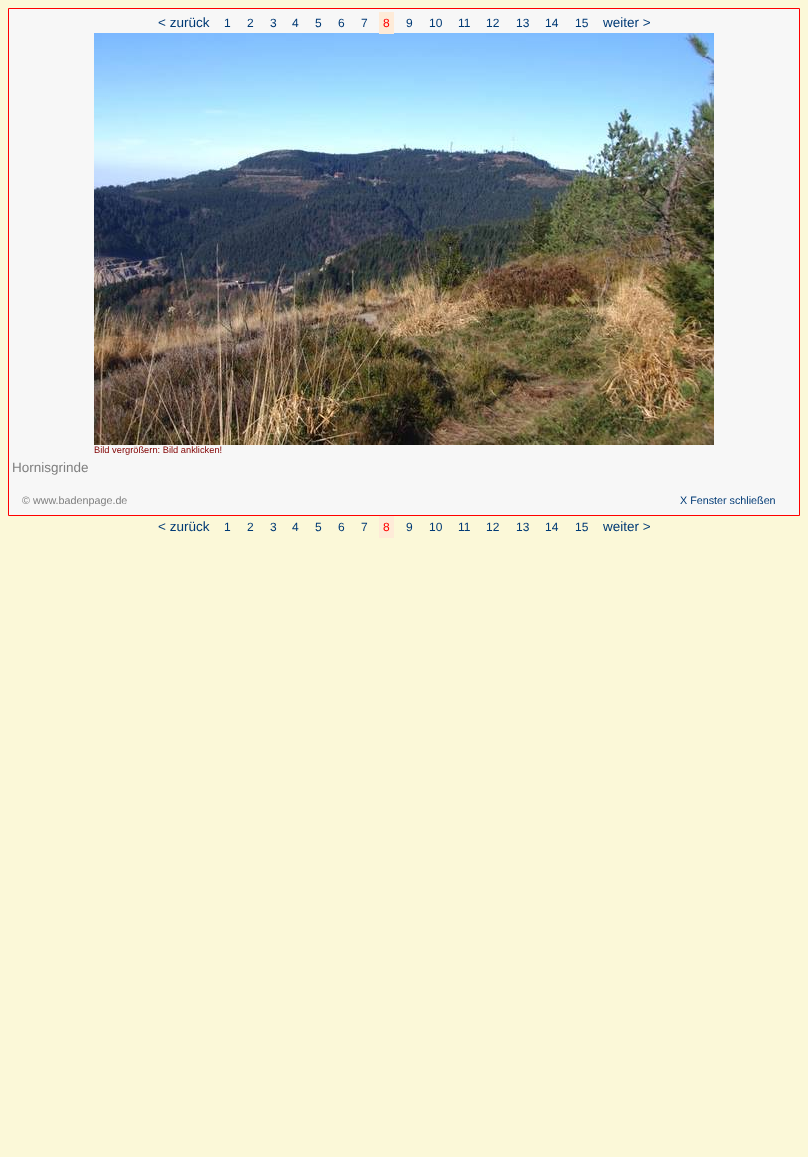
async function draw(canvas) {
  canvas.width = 808;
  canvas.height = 1157;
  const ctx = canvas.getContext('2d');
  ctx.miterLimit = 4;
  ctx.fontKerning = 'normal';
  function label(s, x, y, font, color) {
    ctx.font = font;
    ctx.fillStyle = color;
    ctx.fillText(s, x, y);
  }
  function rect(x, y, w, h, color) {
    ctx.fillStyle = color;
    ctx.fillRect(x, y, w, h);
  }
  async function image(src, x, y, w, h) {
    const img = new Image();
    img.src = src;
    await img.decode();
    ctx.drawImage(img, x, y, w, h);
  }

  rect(0, 0, 808, 1157, '#fbf8d8');
  ctx.fillStyle = '#f7f7f7';
  ctx.beginPath();
  ctx.rect(8.5, 8.5, 791, 507);
  ctx.fill();
  ctx.strokeStyle = '#f00';
  ctx.stroke();
  label('< zurück', 158, 27, '13.5px Liberation Sans', '#003a75');
  label('1', 224, 27, '12px Liberation Sans', '#003a75');
  label('2', 247, 27, '12px Liberation Sans', '#003a75');
  label('3', 270, 27, '12px Liberation Sans', '#003a75');
  label('4', 292, 27, '12px Liberation Sans', '#003a75');
  label('5', 315, 27, '12px Liberation Sans', '#003a75');
  label('6', 338, 27, '12px Liberation Sans', '#003a75');
  label('7', 361, 27, '12px Liberation Sans', '#003a75');
  await image('assets/img1.png', 94, 33, 620, 412);
  rect(379, 12, 15, 22, '#feebd8');
  label('8', 383, 27, '12px Liberation Sans', '#f00');
  label('9', 406, 27, '12px Liberation Sans', '#003a75');
  label('10', 429, 27, '12px Liberation Sans', '#003a75');
  label('11', 458, 27, '12px Liberation Sans', '#003a75');
  label('12', 486, 27, '12px Liberation Sans', '#003a75');
  label('13', 516, 27, '12px Liberation Sans', '#003a75');
  label('14', 545, 27, '12px Liberation Sans', '#003a75');
  label('15', 575, 27, '12px Liberation Sans', '#003a75');
  label('weiter >', 603, 27, '13.5px Liberation Sans', '#003a75');
  label('Bild vergrößern: Bild anklicken!', 94, 453, '9.3px Liberation Sans', '#800000');
  label('Hornisgrinde', 12, 472, '13.5px Liberation Sans', '#808080');
  label('© www.badenpage.de', 22, 504, '10.75px Liberation Sans', '#808080');
  label('X Fenster schließen', 680, 504, '10.75px Liberation Sans', '#003a75');
  label('< zurück', 158, 531, '13.5px Liberation Sans', '#003a75');
  label('1', 224, 531, '12px Liberation Sans', '#003a75');
  label('2', 247, 531, '12px Liberation Sans', '#003a75');
  label('3', 270, 531, '12px Liberation Sans', '#003a75');
  label('4', 292, 531, '12px Liberation Sans', '#003a75');
  label('5', 315, 531, '12px Liberation Sans', '#003a75');
  label('6', 338, 531, '12px Liberation Sans', '#003a75');
  label('7', 361, 531, '12px Liberation Sans', '#003a75');
  rect(379, 516, 15, 22, '#feebd8');
  label('8', 383, 531, '12px Liberation Sans', '#f00');
  label('9', 406, 531, '12px Liberation Sans', '#003a75');
  label('10', 429, 531, '12px Liberation Sans', '#003a75');
  label('11', 458, 531, '12px Liberation Sans', '#003a75');
  label('12', 486, 531, '12px Liberation Sans', '#003a75');
  label('13', 516, 531, '12px Liberation Sans', '#003a75');
  label('14', 545, 531, '12px Liberation Sans', '#003a75');
  label('15', 575, 531, '12px Liberation Sans', '#003a75');
  label('weiter >', 603, 531, '13.5px Liberation Sans', '#003a75');
}

draw(document.querySelector('canvas'));
